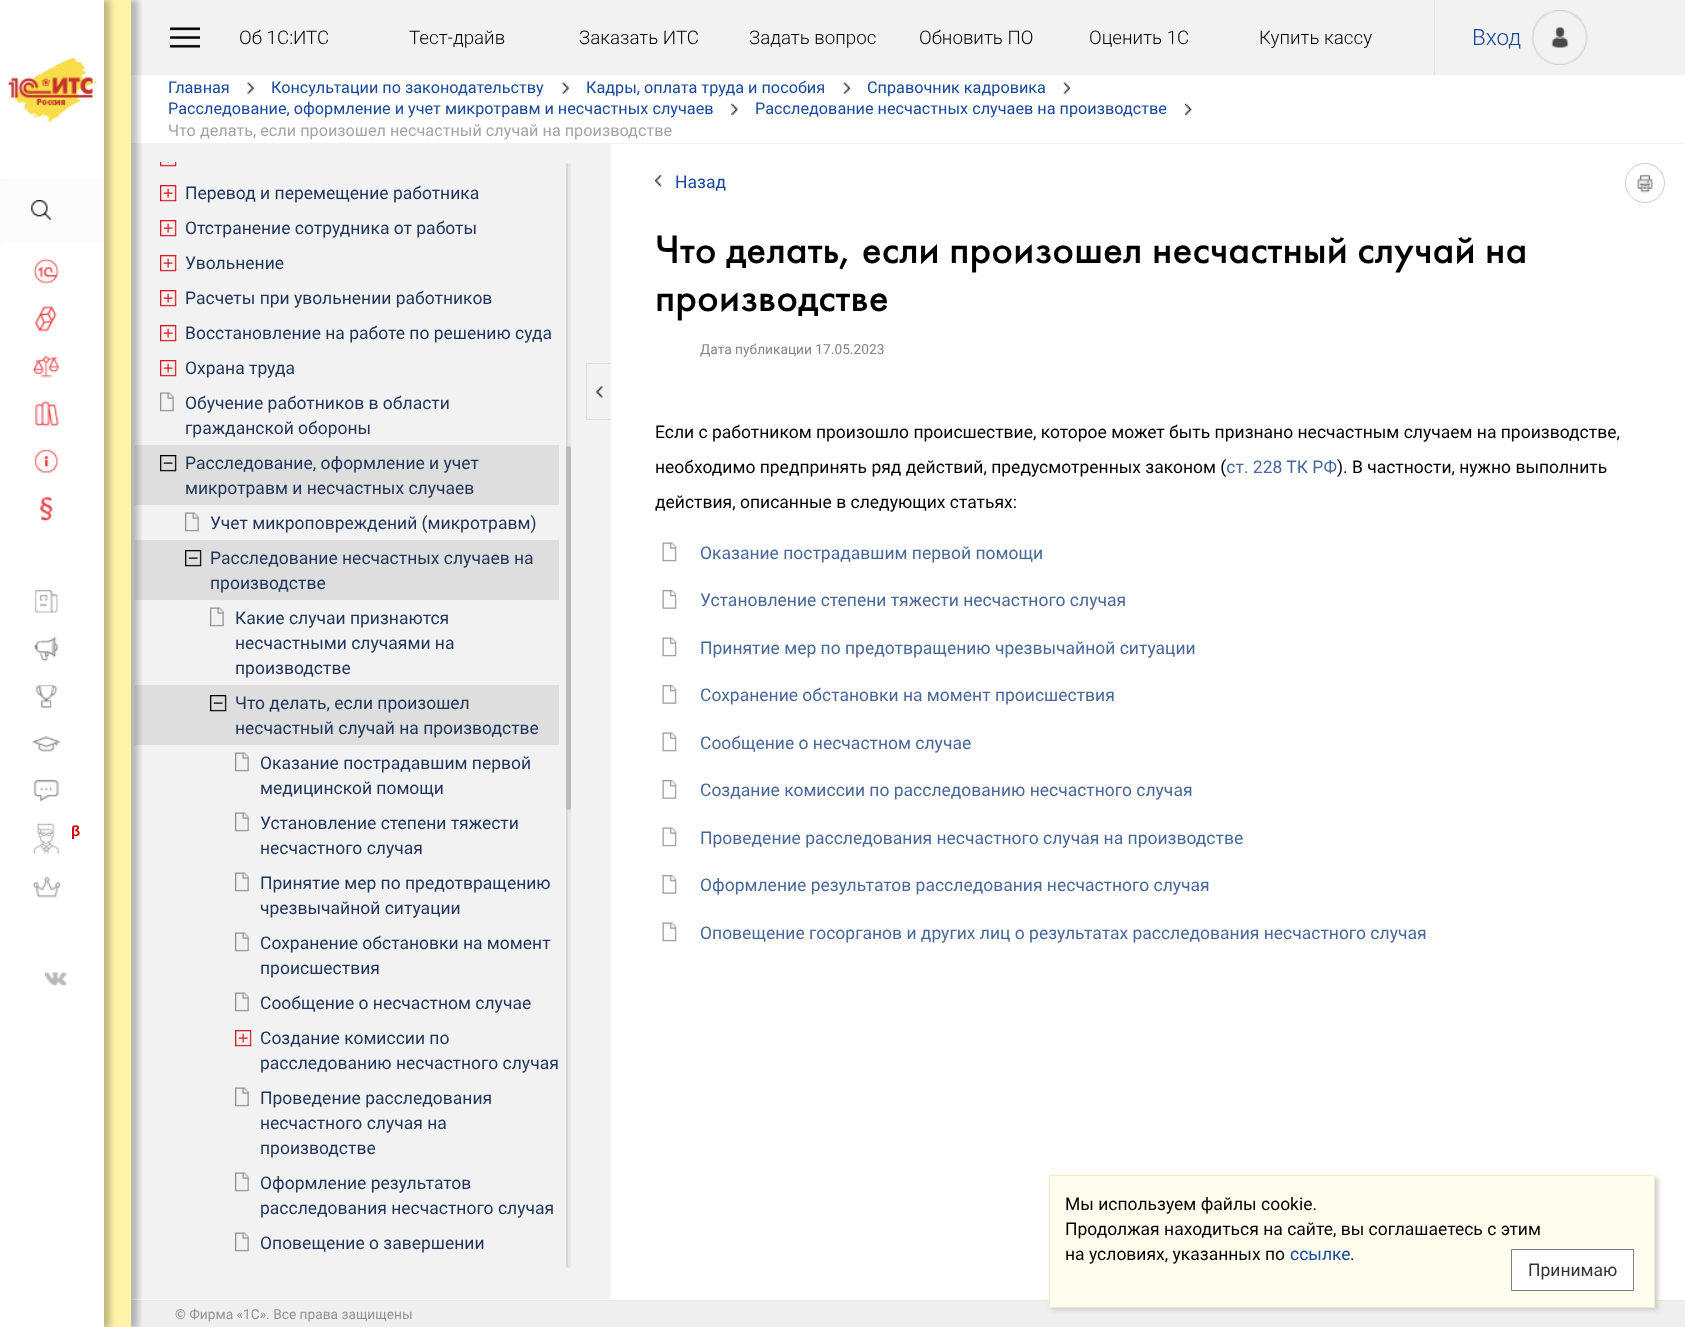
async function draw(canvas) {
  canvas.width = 1685;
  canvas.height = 1327;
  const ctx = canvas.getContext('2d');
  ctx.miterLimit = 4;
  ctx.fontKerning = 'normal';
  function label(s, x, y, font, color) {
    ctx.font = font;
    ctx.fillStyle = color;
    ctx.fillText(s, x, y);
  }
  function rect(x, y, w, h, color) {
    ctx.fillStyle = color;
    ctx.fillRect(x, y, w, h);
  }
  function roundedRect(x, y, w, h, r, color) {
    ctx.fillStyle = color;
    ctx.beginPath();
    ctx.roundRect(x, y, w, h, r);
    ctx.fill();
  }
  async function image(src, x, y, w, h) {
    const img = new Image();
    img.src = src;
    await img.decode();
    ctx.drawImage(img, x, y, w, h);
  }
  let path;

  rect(0, 0, 1685, 1327, '#fff');
  rect(131, 0, 1554, 75, '#f2f2f2');
  await image('assets/img1.png', 170, 27, 30, 21);
  label('Об 1С:ИТС', 239, 44, '300 18.75px Roboto', '#000');
  label('Тест-драйв', 409, 44, '300 18.75px Roboto', '#000');
  label('Заказать ИТС', 579, 44, '300 18.75px Roboto', '#000');
  label('Задать вопрос', 749, 44, '300 18.75px Roboto', '#000');
  label('Обновить ПО', 919, 44, '300 18.75px Roboto', '#000');
  label('Оценить 1С', 1089, 44, '300 18.75px Roboto', '#000');
  label('Купить кассу', 1259, 44, '300 18.75px Roboto', '#000');
  rect(1434, 0, 1, 75, '#e6e6e6');
  label('Вход', 1472, 45, '300 22.5px Roboto', '#16489b');
  await image('assets/img2.png', 1531, 10, 57, 55);
  rect(131, 143, 1554, 1, '#f2f2f2');
  label('Главная', 168, 93, '16.25px Roboto', '#16489b');
  await image('assets/img3.png', 247, 82, 7, 12);
  label('Консультации по законодательству', 271, 93, '16.25px Roboto', '#16489b');
  await image('assets/img4.png', 562, 82, 7, 12);
  label('Кадры, оплата труда и пособия', 586, 93, '16.25px Roboto', '#16489b');
  await image('assets/img5.png', 843, 82, 7, 12);
  label('Справочник кадровика', 867, 93, '16.25px Roboto', '#16489b');
  await image('assets/img5.png', 1063, 82, 7, 12);
  label('Расследование, оформление и учет микротравм и несчастных случаев', 168, 114, '16.25px Roboto', '#16489b');
  await image('assets/img6.png', 731, 103, 7, 12);
  label('Расследование несчастных случаев на производстве', 755, 114, '16.25px Roboto', '#16489b');
  await image('assets/img7.png', 1185, 103, 7, 12);
  label('Что делать, если произошел несчастный случай на производстве', 168, 136, '16.25px Roboto', '#a4a4a4');
  rect(104, 0, 27, 1327, '#fff3a9');
  ctx.fillStyle = '#00000040';
  ctx.filter = 'blur(3px)';
  ctx.beginPath();
  ctx.rect(6, 0, 104, 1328);
  ctx.fill();
  ctx.filter = 'none';
  rect(1, 0, 103, 1327, '#fff');
  await image('assets/img8.png', 8, 57, 90, 66);
  rect(0, 179, 104, 62, '#fbfbfb');
  await image('assets/img9.png', 31, 200, 21, 20);
  await image('assets/img10.png', 33, 258, 26, 26);
  await image('assets/img11.png', 34, 306, 23, 26);
  await image('assets/img12.png', 33, 355, 26, 23);
  await image('assets/img13.png', 34, 401, 25, 26);
  await image('assets/img14.png', 34, 449, 24, 24);
  await image('assets/img15.png', 39, 496, 14, 26);
  rect(131, 144, 480, 1155, '#f2f2f2');
  rect(135, 445, 424, 60, '#dedede');
  rect(135, 540, 424, 60, '#dedede');
  rect(135, 685, 424, 60, '#dedede');
  rect(131, 1301, 1554, 26, '#efefef');
  rect(131, 1300, 1554, 1, '#e8e8e8');
  ctx.save();
  ctx.beginPath();
  ctx.rect(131, 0, 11, 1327);
  ctx.clip();
  ctx.fillStyle = '#00000040';
  ctx.filter = 'blur(3px)';
  ctx.beginPath();
  ctx.rect(115, 0, 23, 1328);
  ctx.fill();
  ctx.filter = 'none';
  ctx.restore();
  await image('assets/img16.png', 34, 589, 24, 24);
  await image('assets/img17.png', 33, 636, 26, 26);
  await image('assets/img18.png', 35, 684, 23, 24);
  await image('assets/img19.png', 32, 736, 29, 16);
  await image('assets/img20.png', 33, 779, 26, 23);
  await image('assets/img21.png', 33, 823, 26, 31);
  label('β', 71, 836, 'bold 15px Liberation Sans', '#c00');
  await image('assets/img22.png', 32, 876, 29, 22);
  await image('assets/img23.png', 45, 972, 22, 14);
  await image('assets/img24.png', 655, 175, 7, 12);
  label('Назад', 675, 188, '17.5px Roboto', '#16489b');
  await image('assets/img25.png', 1637, 174, 16, 19);
  ctx.beginPath();
  ctx.arc(1645, 183, 19.5, 0, 2 * Math.PI);
  ctx.strokeStyle = '#ccc';
  ctx.stroke();
  await image('assets/img26.png', 655, 235, 965, 708);
  await image('assets/img27.png', 160, 162, 17, 5);
  await image('assets/img28.png', 160, 185, 17, 17);
  label('Перевод и перемещение работника', 185, 199, '17.5px Roboto', '#1e3458');
  await image('assets/img28.png', 160, 220, 17, 17);
  label('Отстранение сотрудника от работы', 185, 234, '17.5px Roboto', '#1e3458');
  await image('assets/img28.png', 160, 255, 17, 17);
  label('Увольнение', 185, 269, '17.5px Roboto', '#1e3458');
  await image('assets/img28.png', 160, 290, 17, 17);
  label('Расчеты при увольнении работников', 185, 304, '17.5px Roboto', '#1e3458');
  await image('assets/img28.png', 160, 325, 17, 17);
  label('Восстановление на работе по решению суда', 185, 339, '17.5px Roboto', '#1e3458');
  await image('assets/img28.png', 160, 360, 17, 17);
  label('Охрана труда', 185, 374, '17.5px Roboto', '#1e3458');
  await image('assets/img29.png', 160, 392, 14, 20);
  label('Обучение работников в области', 185, 409, '17.5px Roboto', '#1e3458');
  label('гражданской обороны', 185, 434, '17.5px Roboto', '#1e3458');
  await image('assets/img30.png', 160, 455, 17, 17);
  label('Расследование, оформление и учет', 185, 469, '17.5px Roboto', '#1e3458');
  label('микротравм и несчастных случаев', 185, 494, '17.5px Roboto', '#1e3458');
  await image('assets/img31.png', 185, 512, 14, 20);
  label('Учет микроповреждений (микротравм)', 210, 529, '17.5px Roboto', '#1e3458');
  await image('assets/img32.png', 185, 550, 17, 17);
  label('Расследование несчастных случаев на', 210, 564, '17.5px Roboto', '#1e3458');
  label('производстве', 210, 589, '17.5px Roboto', '#1e3458');
  await image('assets/img29.png', 210, 607, 14, 20);
  label('Какие случаи признаются', 235, 624, '17.5px Roboto', '#1e3458');
  label('несчастными случаями на', 235, 649, '17.5px Roboto', '#1e3458');
  label('производстве', 235, 674, '17.5px Roboto', '#1e3458');
  await image('assets/img30.png', 210, 695, 17, 17);
  label('Что делать, если произошел', 235, 709, '17.5px Roboto', '#1e3458');
  label('несчастный случай на производстве', 235, 734, '17.5px Roboto', '#1e3458');
  await image('assets/img29.png', 235, 752, 14, 20);
  label('Оказание пострадавшим первой', 260, 769, '17.5px Roboto', '#1e3458');
  label('медицинской помощи', 260, 794, '17.5px Roboto', '#1e3458');
  await image('assets/img31.png', 235, 812, 14, 20);
  label('Установление степени тяжести', 260, 829, '17.5px Roboto', '#1e3458');
  label('несчастного случая', 260, 854, '17.5px Roboto', '#1e3458');
  await image('assets/img29.png', 235, 872, 14, 20);
  label('Принятие мер по предотвращению', 260, 889, '17.5px Roboto', '#1e3458');
  label('чрезвычайной ситуации', 260, 914, '17.5px Roboto', '#1e3458');
  await image('assets/img31.png', 235, 932, 14, 20);
  label('Сохранение обстановки на момент', 260, 949, '17.5px Roboto', '#1e3458');
  label('происшествия', 260, 974, '17.5px Roboto', '#1e3458');
  await image('assets/img29.png', 235, 992, 14, 20);
  label('Сообщение о несчастном случае', 260, 1009, '17.5px Roboto', '#1e3458');
  await image('assets/img33.png', 235, 1030, 17, 17);
  label('Создание комиссии по', 260, 1044, '17.5px Roboto', '#1e3458');
  label('расследованию несчастного случая', 260, 1069, '17.5px Roboto', '#1e3458');
  await image('assets/img29.png', 235, 1087, 14, 20);
  label('Проведение расследования', 260, 1104, '17.5px Roboto', '#1e3458');
  label('несчастного случая на', 260, 1129, '17.5px Roboto', '#1e3458');
  label('производстве', 260, 1154, '17.5px Roboto', '#1e3458');
  await image('assets/img31.png', 235, 1172, 14, 20);
  label('Оформление результатов', 260, 1189, '17.5px Roboto', '#1e3458');
  label('расследования несчастного случая', 260, 1214, '17.5px Roboto', '#1e3458');
  await image('assets/img29.png', 235, 1232, 14, 20);
  label('Оповещение о завершении', 260, 1249, '17.5px Roboto', '#1e3458');
  roundedRect(566, 163, 5, 1105, 2.5, '#e7e7e7');
  ctx.fillStyle = '#d8d8d8';
  path = new Path2D('M568 163C567 163 566 164 566 166V1266C566 1267 568 1268 569 1268L568 1265V165Z');
  ctx.fill(path);
  roundedRect(566, 446, 5, 364, 2.5, '#bbb');
  rect(586, 363, 25, 1, '#dedede');
  rect(586, 419, 25, 1, '#dedede');
  rect(586, 363, 1, 57, '#dedede');
  await image('assets/img34.png', 596, 386, 7, 12);
  ctx.fillStyle = '#ccc';
  ctx.filter = 'blur(2px)';
  ctx.beginPath();
  ctx.rect(1051, 1178, 607, 132);
  ctx.fill();
  ctx.filter = 'none';
  ctx.fillStyle = '#fffeee';
  ctx.beginPath();
  ctx.rect(1049.5, 1175.5, 605, 132);
  ctx.fill();
  ctx.strokeStyle = '#f0edbf';
  ctx.stroke();
  label('Мы используем файлы cookie.', 1065, 1210, '17.5px Roboto', '#000');
  label('Продолжая находиться на сайте, вы соглашаетесь с этим', 1065, 1235, '17.5px Roboto', '#000');
  label('на условиях, указанных по', 1065, 1260, '17.5px Roboto', '#000');
  label('ссылке', 1290, 1260, '17.5px Roboto', '#16489b');
  label('.', 1350, 1260, '17.5px Roboto', '#000');
  ctx.fillStyle = '#fff';
  ctx.beginPath();
  ctx.rect(1511.5, 1249.5, 122, 41);
  ctx.fill();
  ctx.strokeStyle = '#7f7f7f';
  ctx.stroke();
  label('Принимаю', 1528, 1276, '17.5px Roboto', '#333');
  label('© Фирма «1С». Все права защищены', 175, 1319, '13.75px Roboto', '#939393');
}

draw(document.querySelector('canvas'));
